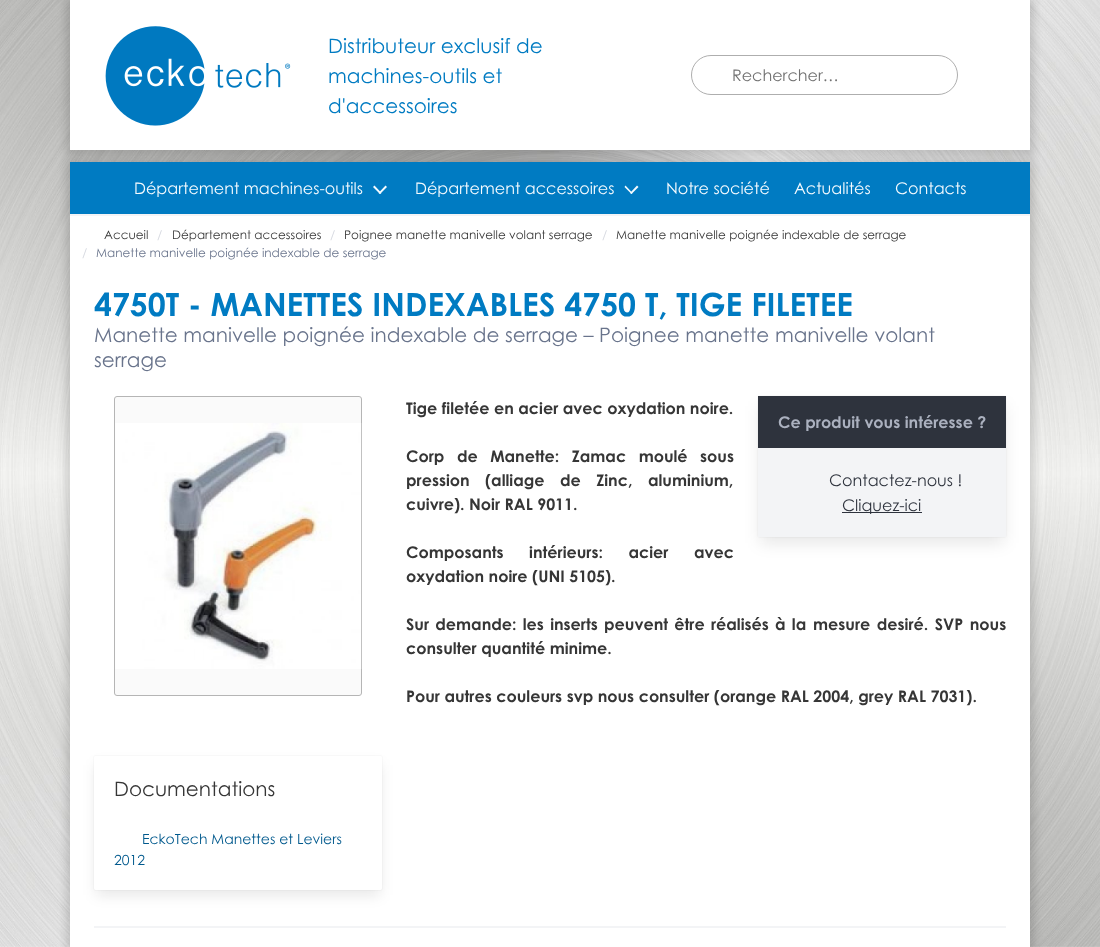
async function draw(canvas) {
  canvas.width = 1100;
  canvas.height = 947;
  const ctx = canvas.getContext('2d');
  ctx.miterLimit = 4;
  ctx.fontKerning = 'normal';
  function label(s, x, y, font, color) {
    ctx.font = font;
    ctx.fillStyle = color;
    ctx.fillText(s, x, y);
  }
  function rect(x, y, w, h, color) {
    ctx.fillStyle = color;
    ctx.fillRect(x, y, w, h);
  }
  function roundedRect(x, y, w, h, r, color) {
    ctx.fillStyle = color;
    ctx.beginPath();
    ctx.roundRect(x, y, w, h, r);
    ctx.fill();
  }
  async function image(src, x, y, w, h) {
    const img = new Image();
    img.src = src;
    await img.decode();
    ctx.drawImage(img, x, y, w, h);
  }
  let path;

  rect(0, 0, 1100, 947, '#fff');
  await image('assets/img1.png', 0, 0, 1100, 947);
  ctx.fillStyle = '#00000026';
  ctx.filter = 'blur(4px)';
  ctx.beginPath();
  ctx.rect(66, -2, 968, 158);
  ctx.fill();
  ctx.filter = 'none';
  rect(70, 0, 960, 150, '#fff');
  await image('assets/img2.png', 105, 26, 186, 100);
  label('Distributeur exclusif de', 328, 53, '20px Century Gothic', '#007bc2');
  label('machines-outils et', 328, 83, '20px Century Gothic', '#007bc2');
  label('d\'accessoires', 328, 113, '20px Century Gothic', '#007bc2');
  ctx.beginPath();
  ctx.roundRect(691.5, 55.5, 266, 39, 19.5);
  ctx.strokeStyle = '#aeaeae';
  ctx.stroke();
  label('Rechercher…', 732, 81, '16px Century Gothic', '#717171');
  ctx.fillStyle = '#00000026';
  ctx.filter = 'blur(4px)';
  ctx.beginPath();
  ctx.rect(66, 160, 968, 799);
  ctx.fill();
  ctx.filter = 'none';
  rect(70, 216, 960, 731, '#fff');
  rect(70, 214, 960, 2, '#f3f4f6');
  rect(70, 162, 960, 52, '#007bc2');
  label('Département machines-outils', 134, 194, '16px Century Gothic', '#f5fbff');
  path = new Path2D('M378.5 193L385.5 185.5L387 187L380 194Z');
  ctx.fill(path);
  path = new Path2D('M373 187L374.5 185.5L381.5 193L380 194Z');
  ctx.fill(path);
  label('Département accessoires', 415, 194, '16px Century Gothic', '#f5fbff');
  path = new Path2D('M630 193L637 185.5L638.5 187L631.5 194Z');
  ctx.fill(path);
  path = new Path2D('M624.5 187L625.5 185.5L632.5 193L631.5 194Z');
  ctx.fill(path);
  label('Notre société', 666, 194, '16px Century Gothic', '#f5fbff');
  label('Actualités', 794, 194, '16px Century Gothic', '#f5fbff');
  label('Contacts', 895, 194, '16px Century Gothic', '#f5fbff');
  label('Accueil', 104, 239, '12px Century Gothic', '#363636');
  label('/', 157, 239, '12px Century Gothic', '#d6d9e0');
  label('Département accessoires', 172, 239, '12px Century Gothic', '#363636');
  label('/', 330, 239, '12px Century Gothic', '#d6d9e0');
  label('Poignee manette manivelle volant serrage', 344, 239, '12px Century Gothic', '#363636');
  label('/', 602, 239, '12px Century Gothic', '#d6d9e0');
  label('Manette manivelle poignée indexable de serrage', 616, 239, '12px Century Gothic', '#363636');
  label('/', 82, 257, '12px Century Gothic', '#d6d9e0');
  label('Manette manivelle poignée indexable de serrage', 96, 257, '12px Century Gothic', '#69748c');
  label('4750T - MANETTES INDEXABLES 4750 T, TIGE FILETEE', 94, 316, 'bold 32px Century Gothic', '#007bc2');
  label('Manette manivelle poignée indexable de serrage – Poignee manette manivelle volant', 94, 342, '20px Century Gothic', '#69748c');
  label('serrage', 94, 367, '20px Century Gothic', '#69748c');
  label('Tige filetée en acier avec oxydation noire.', 406, 414, 'bold 16px Century Gothic', '#363636');
  ctx.wordSpacing = '8px';
  label('Corp de Manette: Zamac moulé sous', 406, 462, 'bold 16px Century Gothic', '#363636');
  ctx.wordSpacing = '0px';
  label('pression', 406, 486, 'bold 16px Century Gothic', '#363636');
  ctx.wordSpacing = '11px';
  label('(alliage de Zinc, aluminium,', 485, 486, 'bold 16px Century Gothic', '#363636');
  ctx.wordSpacing = '0px';
  label('cuivre). Noir RAL 9011.', 406, 510, 'bold 16px Century Gothic', '#363636');
  ctx.wordSpacing = '21px';
  label('Composants intérieurs: acier avec', 406, 558, 'bold 16px Century Gothic', '#363636');
  ctx.wordSpacing = '0px';
  label('oxydation noire (UNI 5105).', 406, 582, 'bold 16px Century Gothic', '#363636');
  ctx.wordSpacing = '1.75px';
  label('Sur demande: les inserts peuvent être réalisés à la', 406, 630, 'bold 16px Century Gothic', '#363636');
  ctx.wordSpacing = '2px';
  label('mesure desiré. SVP nous', 813, 630, 'bold 16px Century Gothic', '#363636');
  ctx.wordSpacing = '0px';
  label('consulter quantité minime.', 406, 654, 'bold 16px Century Gothic', '#363636');
  label('Pour autres couleurs svp nous consulter (orange RAL 2004, grey RAL 7031).', 406, 702, 'bold 16px Century Gothic', '#363636');
  ctx.beginPath();
  ctx.roundRect(757.5, 395.5, 249, 142, 2.5);
  ctx.strokeStyle = '#fafafa';
  ctx.stroke();
  ctx.fillStyle = '#090a0c1a';
  ctx.filter = 'blur(8px)';
  ctx.beginPath();
  ctx.rect(760, 406, 244, 137);
  ctx.fill();
  ctx.filter = 'none';
  rect(758, 396, 248, 52, '#2e333d');
  label('Ce produit vous intéresse ?', 778, 428, 'bold 16px Century Gothic', '#abb1bf');
  rect(758, 448, 248, 89, '#f3f4f6');
  label('Contactez-nous !', 829, 486, '16px Century Gothic', '#2e333d');
  rect(842, 512, 80, 1, '#2e333d');
  label('Cliquez-ici', 842, 511, '16px Century Gothic', '#2e333d');
  ctx.fillStyle = '#fafafa';
  ctx.beginPath();
  ctx.roundRect(114.5, 396.5, 247, 299, 2.5);
  ctx.fill();
  ctx.strokeStyle = '#b5b5b5';
  ctx.stroke();
  await image('assets/img3.png', 115, 423, 247, 246);
  ctx.beginPath();
  ctx.roundRect(93.5, 755.5, 289, 135, 2.5);
  ctx.strokeStyle = '#fafafa';
  ctx.stroke();
  ctx.fillStyle = '#090a0c1a';
  ctx.filter = 'blur(7px)';
  ctx.beginPath();
  ctx.rect(96, 765, 284, 130);
  ctx.fill();
  ctx.filter = 'none';
  roundedRect(94, 756, 288, 134, 2, '#fff');
  label('Documentations', 114, 796, '20px Century Gothic', '#363636');
  label('EckoTech Manettes et Leviers', 142, 844, '14px Century Gothic', '#00598d');
  label('2012', 114, 865, '14px Century Gothic', '#00598d');
  rect(94, 926, 912, 2, '#f3f4f6');
}

draw(document.querySelector('canvas'));
